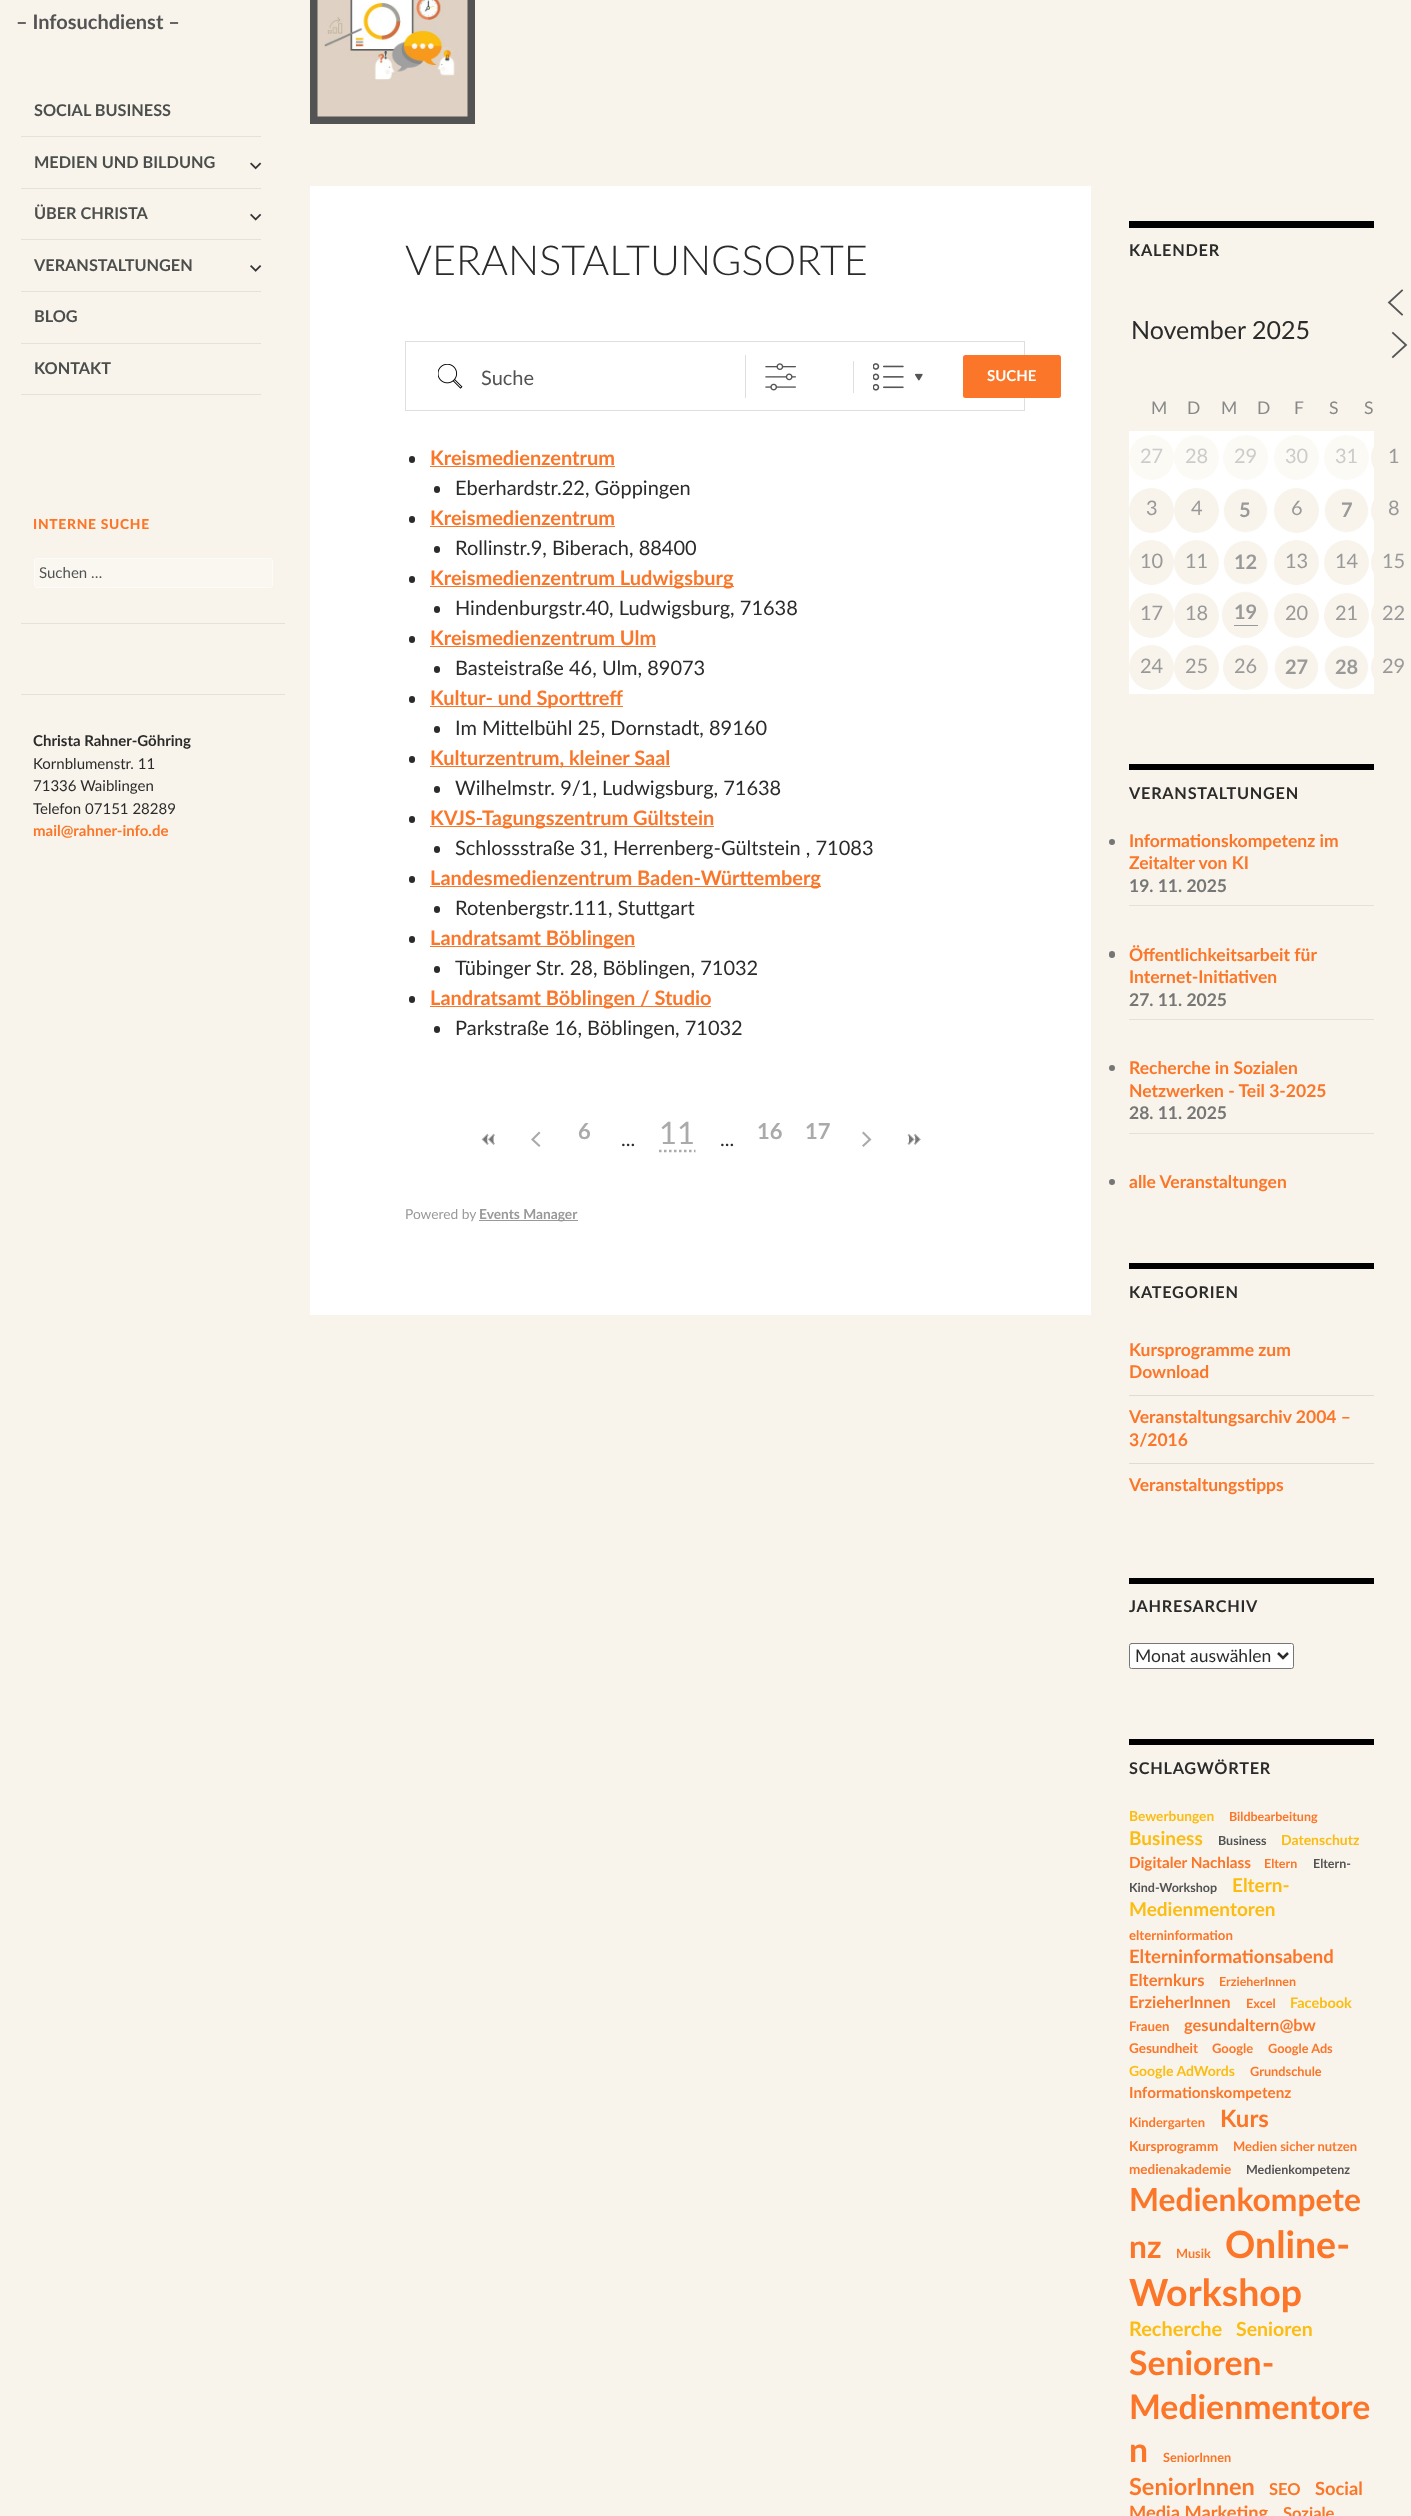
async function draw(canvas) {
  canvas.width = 1411;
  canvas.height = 2516;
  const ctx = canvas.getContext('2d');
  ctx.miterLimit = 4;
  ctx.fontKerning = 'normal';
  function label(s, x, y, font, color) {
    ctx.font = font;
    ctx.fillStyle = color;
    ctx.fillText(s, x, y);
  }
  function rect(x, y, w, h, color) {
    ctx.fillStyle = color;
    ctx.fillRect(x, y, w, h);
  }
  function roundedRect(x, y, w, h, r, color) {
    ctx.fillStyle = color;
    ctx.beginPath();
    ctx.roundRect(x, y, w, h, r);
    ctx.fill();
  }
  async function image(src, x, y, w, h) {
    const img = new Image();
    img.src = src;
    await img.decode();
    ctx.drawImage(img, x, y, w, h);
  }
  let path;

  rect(0, 0, 1411, 2516, '#f8f4eb');
  label('– Infosuchdienst –', 16, 29, 'bold 20px Lato', '#535353');
  rect(21, 394, 240, 1, '#e4e1d9');
  label('SOCIAL BUSINESS', 34, 116, 'bold 16.25px Lato', '#4c4e4c');
  rect(21, 136, 240, 1, '#e4e1d9');
  label('MEDIEN UND BILDUNG', 34, 168, 'bold 16.25px Lato', '#4c4e4c');
  await image('assets/img1.png', 250, 162, 12, 8);
  rect(21, 188, 240, 1, '#e4e1d9');
  label('ÜBER CHRISTA', 34, 219, 'bold 16.25px Lato', '#4c4e4c');
  await image('assets/img2.png', 250, 213, 12, 8);
  rect(21, 239, 240, 1, '#e4e1d9');
  label('VERANSTALTUNGEN', 34, 271, 'bold 16.25px Lato', '#4c4e4c');
  await image('assets/img3.png', 250, 265, 12, 7);
  rect(21, 291, 240, 1, '#e4e1d9');
  label('BLOG', 34, 322, 'bold 16.25px Lato', '#4c4e4c');
  rect(21, 343, 240, 1, '#e4e1d9');
  label('KONTAKT', 34, 374, 'bold 16.25px Lato', '#4c4e4c');
  ctx.letterSpacing = '0.75px';
  label('INTERNE SUCHE', 33, 529, '900 13.75px Lato', '#fb7629');
  ctx.fillStyle = '#faf7f1';
  ctx.beginPath();
  ctx.roundRect(34.5, 558.5, 238, 29, 2);
  ctx.fill();
  ctx.strokeStyle = '#fcfbf8';
  ctx.stroke();
  ctx.letterSpacing = '0px';
  label('Suchen …', 39, 578, '15px Lato', '#535353');
  rect(21, 623, 264, 1, '#e4e1d9');
  rect(21, 694, 264, 1, '#e4e1d9');
  label('Christa Rahner-Göhring', 33, 746, 'bold 15px Lato', '#2b2b2b');
  label('Kornblumenstr. 11', 33, 769, '15px Lato', '#2b2b2b');
  label('71336 Waiblingen', 33, 791, '15px Lato', '#2b2b2b');
  label('Telefon 07151 28289', 33, 814, '15px Lato', '#2b2b2b');
  label('mail@rahner-info.de', 33, 836, 'bold 15px Lato', '#fb7629');
  rect(310, 0, 165, 124, '#535353');
  await image('assets/img4.png', 317, 0, 151, 117);
  rect(310, 186, 781, 1129, '#fff');
  label('VERANSTALTUNGSORTE', 405, 275, '300 41.25px Lato', '#2b2b2b');
  ctx.strokeStyle = '#dedede';
  ctx.strokeRect(405.5, 341.5, 619, 69);
  rect(745, 355, 1, 43, '#dedede');
  await image('assets/img5.png', 438, 364, 25, 25);
  label('Suche', 481, 385, '20px Lato', '#535353');
  await image('assets/img6.png', 765, 363, 31, 28);
  rect(853, 361, 1, 32, '#dedede');
  await image('assets/img7.png', 915, 373, 8, 8);
  await image('assets/img8.png', 873, 363, 31, 28);
  roundedRect(963, 355, 98, 43, 2.5, '#fb7629');
  label('SUCHE', 987, 381, 'bold 15px Lato', '#fff');
  roundedRect(409, 456, 6, 7, 3, '#2b2b2b');
  label('Kreismedienzentrum', 430, 465, 'bold 20px Lato', '#fb7629');
  rect(430, 466, 185, 1, '#fb7629');
  roundedRect(434, 486, 6, 7, 3, '#2b2b2b');
  label('Eberhardstr.22, Göppingen', 455, 495, '20px Lato', '#2b2b2b');
  roundedRect(409, 516, 6, 7, 3, '#2b2b2b');
  label('Kreismedienzentrum', 430, 525, 'bold 20px Lato', '#fb7629');
  rect(430, 526, 185, 1, '#fb7629');
  roundedRect(434, 546, 6, 7, 3, '#2b2b2b');
  label('Rollinstr.9, Biberach, 88400', 455, 555, '20px Lato', '#2b2b2b');
  roundedRect(409, 576, 6, 7, 3, '#2b2b2b');
  rect(430, 586, 304, 1, '#fb7629');
  label('Kreismedienzentrum Ludwigsburg', 430, 585, 'bold 20px Lato', '#fb7629');
  roundedRect(434, 606, 6, 7, 3, '#2b2b2b');
  label('Hindenburgstr.40, Ludwigsburg, 71638', 455, 615, '20px Lato', '#2b2b2b');
  roundedRect(409, 636, 6, 7, 3, '#2b2b2b');
  label('Kreismedienzentrum Ulm', 430, 645, 'bold 20px Lato', '#fb7629');
  rect(430, 646, 226, 1, '#fb7629');
  roundedRect(434, 666, 6, 7, 3, '#2b2b2b');
  label('Basteistraße 46, Ulm, 89073', 455, 675, '20px Lato', '#2b2b2b');
  roundedRect(409, 696, 6, 7, 3, '#2b2b2b');
  rect(430, 706, 193, 1, '#fb7629');
  label('Kultur- und Sporttreff', 430, 705, 'bold 20px Lato', '#fb7629');
  roundedRect(434, 726, 6, 7, 3, '#2b2b2b');
  label('Im Mittelbühl 25, Dornstadt, 89160', 455, 735, '20px Lato', '#2b2b2b');
  roundedRect(409, 756, 6, 7, 3, '#2b2b2b');
  rect(430, 766, 240, 1, '#fb7629');
  label('Kulturzentrum, kleiner Saal', 430, 765, 'bold 20px Lato', '#fb7629');
  roundedRect(434, 786, 6, 7, 3, '#2b2b2b');
  label('Wilhelmstr. 9/1, Ludwigsburg, 71638', 455, 795, '20px Lato', '#2b2b2b');
  roundedRect(409, 816, 6, 7, 3, '#2b2b2b');
  rect(430, 826, 284, 1, '#fb7629');
  label('KVJS-Tagungszentrum Gültstein', 430, 825, 'bold 20px Lato', '#fb7629');
  roundedRect(434, 846, 6, 7, 3, '#2b2b2b');
  label('Schlossstraße 31, Herrenberg-Gültstein , 71083', 455, 855, '20px Lato', '#2b2b2b');
  roundedRect(409, 876, 6, 7, 3, '#2b2b2b');
  rect(430, 886, 391, 1, '#fb7629');
  label('Landesmedienzentrum Baden-Württemberg', 430, 885, 'bold 20px Lato', '#fb7629');
  roundedRect(434, 906, 6, 7, 3, '#2b2b2b');
  label('Rotenbergstr.111, Stuttgart', 455, 915, '20px Lato', '#2b2b2b');
  roundedRect(409, 936, 6, 7, 3, '#2b2b2b');
  rect(430, 946, 205, 1, '#fb7629');
  label('Landratsamt Böblingen', 430, 945, 'bold 20px Lato', '#fb7629');
  roundedRect(434, 966, 6, 7, 3, '#2b2b2b');
  label('Tübinger Str. 28, Böblingen, 71032', 455, 975, '20px Lato', '#2b2b2b');
  roundedRect(409, 996, 6, 7, 3, '#2b2b2b');
  rect(430, 1006, 281, 1, '#fb7629');
  label('Landratsamt Böblingen / Studio', 430, 1005, 'bold 20px Lato', '#fb7629');
  roundedRect(434, 1026, 6, 7, 3, '#2b2b2b');
  label('Parkstraße 16, Böblingen, 71032', 455, 1035, '20px Lato', '#2b2b2b');
  await image('assets/img9.png', 481, 1133, 14, 12);
  path = new Path2D('M539 1133L532.5 1139.5L539 1145.5');
  ctx.strokeStyle = '#aaa';
  ctx.lineWidth = 2.1;
  ctx.lineCap = 'square';
  ctx.stroke(path);
  label('6', 578, 1139, 'bold 22px Lato', '#aaa');
  label('...', 621, 1146, '20px Lato', '#2b2b2b');
  label('11', 659, 1144, '31px Lato', '#aaa');
  path = new Path2D('M659 1151H695.5');
  ctx.lineWidth = 2.5;
  ctx.lineCap = 'butt';
  ctx.setLineDash([2.5, 2.5]);
  ctx.stroke(path);
  label('...', 720, 1146, '20px Lato', '#2b2b2b');
  label('16', 757, 1139, 'bold 22px Lato', '#aaa');
  label('17', 805, 1139, 'bold 22px Lato', '#aaa');
  path = new Path2D('M863.5 1145.5L870 1139.5L863.5 1133');
  ctx.lineWidth = 2.1;
  ctx.lineCap = 'square';
  ctx.setLineDash([]);
  ctx.stroke(path);
  await image('assets/img10.png', 907, 1133, 14, 12);
  label('Powered by', 405, 1219, '13.75px Lato', '#999');
  rect(479, 1220, 99, 1, '#999');
  label('Events Manager', 479, 1219, 'bold 13.75px Lato', '#999');
  rect(1129, 221, 245, 7, '#000');
  ctx.letterSpacing = '0.75px';
  label('KALENDER', 1129, 256, 'bold 16.25px Lato', '#2b2b2b');
  ctx.letterSpacing = '0px';
  label('November 2025', 1131, 339, '25px Lato', '#2b2b2b');
  path = new Path2D('M1402 314.5L1389 302.5L1402 290.5');
  ctx.strokeStyle = '#555';
  ctx.lineWidth = 1.8;
  ctx.stroke(path);
  path = new Path2D('M1393 357L1406 345L1393 333');
  ctx.stroke(path);
  label('M', 1151, 414, '17.5px Lato', '#888');
  label('D', 1187, 414, '17.5px Lato', '#888');
  label('M', 1221, 414, '17.5px Lato', '#888');
  label('D', 1257, 414, '17.5px Lato', '#888');
  label('F', 1294, 414, '17.5px Lato', '#888');
  label('S', 1329, 414, '17.5px Lato', '#888');
  label('S', 1364, 414, '17.5px Lato', '#888');
  rect(1129, 431, 245, 263, '#fff');
  ctx.fillStyle = '#fcfaf5';
  ctx.beginPath();
  ctx.arc(1151.5, 457.5, 22.5, 0, 2 * Math.PI);
  ctx.fill();
  label('27', 1140, 463, '20px Lato', '#ccc');
  ctx.fillStyle = '#fcfaf5';
  ctx.beginPath();
  ctx.arc(1196.5, 457.5, 22.5, 0, 2 * Math.PI);
  ctx.fill();
  label('28', 1185, 463, '20px Lato', '#ccc');
  ctx.fillStyle = '#fcfaf5';
  ctx.beginPath();
  ctx.arc(1245.5, 457.5, 22.5, 0, 2 * Math.PI);
  ctx.fill();
  label('29', 1234, 463, '20px Lato', '#ccc');
  ctx.fillStyle = '#fcfaf5';
  ctx.beginPath();
  ctx.arc(1296.5, 457.5, 22.5, 0, 2 * Math.PI);
  ctx.fill();
  label('30', 1285, 463, '20px Lato', '#ccc');
  ctx.fillStyle = '#fcfaf5';
  ctx.beginPath();
  ctx.arc(1346.5, 457.5, 22.5, 0, 2 * Math.PI);
  ctx.fill();
  label('31', 1335, 463, '20px Lato', '#ccc');
  ctx.fillStyle = '#f8f4eb';
  ctx.beginPath();
  ctx.arc(1393.5, 457.5, 22.5, 0, 2 * Math.PI);
  ctx.fill();
  label('1', 1388, 463, '20px Lato', '#999');
  ctx.fillStyle = '#f8f4eb';
  ctx.beginPath();
  ctx.arc(1151.5, 510.5, 22.5, 0, 2 * Math.PI);
  ctx.fill();
  label('3', 1146, 515, '20px Lato', '#999');
  ctx.fillStyle = '#f8f4eb';
  ctx.beginPath();
  ctx.arc(1196.5, 510.5, 22.5, 0, 2 * Math.PI);
  ctx.fill();
  label('4', 1191, 515, '20px Lato', '#999');
  ctx.fillStyle = '#f8f4eb';
  ctx.beginPath();
  ctx.arc(1245.5, 510.5, 22, 0, 2 * Math.PI);
  ctx.fill();
  ctx.strokeStyle = '#fefefe';
  ctx.lineWidth = 1;
  ctx.stroke();
  label('5', 1239, 517, 'bold 20px Lato', '#999');
  ctx.fillStyle = '#f8f4eb';
  ctx.beginPath();
  ctx.arc(1296.5, 510.5, 22.5, 0, 2 * Math.PI);
  ctx.fill();
  label('6', 1291, 515, '20px Lato', '#999');
  ctx.fillStyle = '#f8f4eb';
  ctx.beginPath();
  ctx.arc(1346.5, 510.5, 22, 0, 2 * Math.PI);
  ctx.fill();
  ctx.stroke();
  label('7', 1341, 517, 'bold 20px Lato', '#999');
  ctx.fillStyle = '#f8f4eb';
  ctx.beginPath();
  ctx.arc(1393.5, 510.5, 22.5, 0, 2 * Math.PI);
  ctx.fill();
  label('8', 1388, 515, '20px Lato', '#999');
  ctx.fillStyle = '#f8f4eb';
  ctx.beginPath();
  ctx.arc(1151.5, 562.5, 22.5, 0, 2 * Math.PI);
  ctx.fill();
  label('10', 1140, 568, '20px Lato', '#999');
  ctx.fillStyle = '#f8f4eb';
  ctx.beginPath();
  ctx.arc(1196.5, 562.5, 22.5, 0, 2 * Math.PI);
  ctx.fill();
  label('11', 1185, 568, '20px Lato', '#999');
  ctx.fillStyle = '#f8f4eb';
  ctx.beginPath();
  ctx.arc(1245.5, 562.5, 22, 0, 2 * Math.PI);
  ctx.fill();
  ctx.stroke();
  label('12', 1234, 569, 'bold 20px Lato', '#999');
  ctx.fillStyle = '#f8f4eb';
  ctx.beginPath();
  ctx.arc(1296.5, 562.5, 22.5, 0, 2 * Math.PI);
  ctx.fill();
  label('13', 1285, 568, '20px Lato', '#999');
  ctx.fillStyle = '#f8f4eb';
  ctx.beginPath();
  ctx.arc(1346.5, 562.5, 22.5, 0, 2 * Math.PI);
  ctx.fill();
  label('14', 1335, 568, '20px Lato', '#999');
  ctx.fillStyle = '#f8f4eb';
  ctx.beginPath();
  ctx.arc(1393.5, 562.5, 22.5, 0, 2 * Math.PI);
  ctx.fill();
  label('15', 1382, 568, '20px Lato', '#999');
  ctx.fillStyle = '#f8f4eb';
  ctx.beginPath();
  ctx.arc(1151.5, 615.5, 22.5, 0, 2 * Math.PI);
  ctx.fill();
  label('17', 1140, 620, '20px Lato', '#999');
  ctx.fillStyle = '#f8f4eb';
  ctx.beginPath();
  ctx.arc(1196.5, 615.5, 22.5, 0, 2 * Math.PI);
  ctx.fill();
  label('18', 1185, 620, '20px Lato', '#999');
  ctx.fillStyle = '#f8f4eb';
  ctx.beginPath();
  ctx.arc(1245, 615, 23.5, 0, 2 * Math.PI);
  ctx.fill();
  ctx.stroke();
  label('19', 1234, 619, 'bold 20px Lato', '#999');
  rect(1234, 625, 24, 1, '#999');
  ctx.fillStyle = '#f8f4eb';
  ctx.beginPath();
  ctx.arc(1296.5, 615.5, 22.5, 0, 2 * Math.PI);
  ctx.fill();
  label('20', 1285, 620, '20px Lato', '#999');
  ctx.fillStyle = '#f8f4eb';
  ctx.beginPath();
  ctx.arc(1346.5, 615.5, 22.5, 0, 2 * Math.PI);
  ctx.fill();
  label('21', 1335, 620, '20px Lato', '#999');
  ctx.fillStyle = '#f8f4eb';
  ctx.beginPath();
  ctx.arc(1393.5, 615.5, 22.5, 0, 2 * Math.PI);
  ctx.fill();
  label('22', 1382, 620, '20px Lato', '#999');
  ctx.fillStyle = '#f8f4eb';
  ctx.beginPath();
  ctx.arc(1151.5, 667.5, 22.5, 0, 2 * Math.PI);
  ctx.fill();
  label('24', 1140, 673, '20px Lato', '#999');
  ctx.fillStyle = '#f8f4eb';
  ctx.beginPath();
  ctx.arc(1196.5, 667.5, 22.5, 0, 2 * Math.PI);
  ctx.fill();
  label('25', 1185, 673, '20px Lato', '#999');
  ctx.fillStyle = '#f8f4eb';
  ctx.beginPath();
  ctx.arc(1245.5, 667.5, 22.5, 0, 2 * Math.PI);
  ctx.fill();
  label('26', 1234, 673, '20px Lato', '#999');
  ctx.fillStyle = '#f8f4eb';
  ctx.beginPath();
  ctx.arc(1296.5, 667.5, 22, 0, 2 * Math.PI);
  ctx.fill();
  ctx.stroke();
  label('27', 1285, 674, 'bold 20px Lato', '#999');
  ctx.fillStyle = '#f8f4eb';
  ctx.beginPath();
  ctx.arc(1346.5, 667.5, 22, 0, 2 * Math.PI);
  ctx.fill();
  ctx.stroke();
  label('28', 1335, 674, 'bold 20px Lato', '#999');
  ctx.fillStyle = '#f8f4eb';
  ctx.beginPath();
  ctx.arc(1393.5, 667.5, 22.5, 0, 2 * Math.PI);
  ctx.fill();
  label('29', 1382, 673, '20px Lato', '#999');
  rect(1129, 764, 245, 6, '#000');
  ctx.letterSpacing = '0.75px';
  label('VERANSTALTUNGEN', 1129, 799, 'bold 16.25px Lato', '#2b2b2b');
  ctx.fillStyle = '#767676';
  ctx.beginPath();
  ctx.arc(1112, 842, 3, 0, 2 * Math.PI);
  ctx.fill();
  ctx.letterSpacing = '0px';
  label('Informationskompetenz im', 1129, 847, 'bold 17.5px Lato', '#fb7629');
  label('Zeitalter von KI', 1129, 869, 'bold 17.5px Lato', '#fb7629');
  rect(1129, 905, 245, 1, '#e4e1d9');
  label('19. 11. 2025', 1129, 892, 'bold 17.5px Lato', '#767676');
  roundedRect(1109, 951, 6, 7, 3, '#767676');
  label('Öffentlichkeitsarbeit für', 1129, 961, 'bold 17.5px Lato', '#fb7629');
  label('Internet-Initiativen', 1129, 983, 'bold 17.5px Lato', '#fb7629');
  rect(1129, 1019, 245, 1, '#e4e1d9');
  label('27. 11. 2025', 1129, 1006, 'bold 17.5px Lato', '#767676');
  ctx.beginPath();
  ctx.arc(1112, 1068, 3, 0, 2 * Math.PI);
  ctx.fill();
  label('Recherche in Sozialen', 1129, 1074, 'bold 17.5px Lato', '#fb7629');
  label('Netzwerken - Teil 3-2025', 1129, 1097, 'bold 17.5px Lato', '#fb7629');
  rect(1129, 1133, 245, 1, '#e4e1d9');
  label('28. 11. 2025', 1129, 1119, 'bold 17.5px Lato', '#767676');
  ctx.beginPath();
  ctx.arc(1112, 1182, 3, 0, 2 * Math.PI);
  ctx.fill();
  label('alle Veranstaltungen', 1129, 1188, 'bold 17.5px Lato', '#fb7629');
  rect(1129, 1263, 245, 6, '#000');
  ctx.letterSpacing = '0.75px';
  label('KATEGORIEN', 1129, 1298, 'bold 16.25px Lato', '#2b2b2b');
  ctx.letterSpacing = '0px';
  label('Kursprogramme zum', 1129, 1356, 'bold 17.5px Lato', '#fb7629');
  label('Download', 1129, 1378, 'bold 17.5px Lato', '#fb7629');
  rect(1129, 1395, 245, 1, '#dfdcd4');
  label('Veranstaltungsarchiv 2004 –', 1129, 1423, 'bold 17.5px Lato', '#fb7629');
  label('3/2016', 1129, 1446, 'bold 17.5px Lato', '#fb7629');
  rect(1129, 1463, 245, 1, '#dfdcd4');
  label('Veranstaltungstipps', 1129, 1491, 'bold 17.5px Lato', '#fb7629');
  rect(1129, 1578, 245, 6, '#000');
  ctx.letterSpacing = '0.75px';
  label('JAHRESARCHIV', 1129, 1612, 'bold 16.25px Lato', '#2b2b2b');
  ctx.fillStyle = '#fff';
  ctx.beginPath();
  ctx.roundRect(1129.5, 1643.5, 164, 25, 2);
  ctx.fill();
  ctx.strokeStyle = '#767676';
  ctx.stroke();
  path = new Path2D('M1278 1653L1283 1658L1288 1653');
  ctx.strokeStyle = '#2b2b2b';
  ctx.lineWidth = 2.5;
  ctx.lineCap = 'butt';
  ctx.stroke(path);
  ctx.letterSpacing = '0px';
  label('Monat auswählen', 1135, 1662, '17.5px Lato', '#2b2b2b');
  rect(1129, 1739, 245, 6, '#000');
  ctx.letterSpacing = '0.75px';
  label('SCHLAGWÖRTER', 1129, 1774, 'bold 16.25px Lato', '#2b2b2b');
  ctx.letterSpacing = '0px';
  label('Bewerbungen', 1129, 1821, 'bold 13.75px Lato', '#fbbd14');
  label('Bildbearbeitung', 1229, 1821, 'bold 12.5px Lato', '#fb7629');
  label('Business', 1129, 1845, 'bold 19px Lato', '#fbbd14');
  label('Business', 1218, 1845, 'bold 12.5px Lato', '#535353');
  label('Datenschutz', 1281, 1845, 'bold 14px Lato', '#fbbd14');
  label('Digitaler Nachlass', 1129, 1868, 'bold 15.25px Lato', '#fb7629');
  label('Eltern', 1264, 1868, 'bold 12.5px Lato', '#fb7629');
  label('Eltern-', 1313, 1868, 'bold 12.5px Lato', '#535353');
  label('Kind-Workshop', 1129, 1892, 'bold 12.5px Lato', '#535353');
  label('Eltern-', 1232, 1892, 'bold 19px Lato', '#fbbd14');
  label('Medienmentoren', 1129, 1916, 'bold 19px Lato', '#fbbd14');
  label('elterninformation', 1129, 1940, 'bold 13.25px Lato', '#fb7629');
  label('Elterninformationsabend', 1129, 1963, 'bold 18.5px Lato', '#fb7629');
  label('Elternkurs', 1129, 1986, 'bold 16.5px Lato', '#fb7629');
  label('ErzieherInnen', 1219, 1986, 'bold 12.5px Lato', '#fb7629');
  label('ErzieherInnen', 1129, 2008, 'bold 16.5px Lato', '#fb7629');
  label('Excel', 1246, 2008, 'bold 12.75px Lato', '#fb7629');
  label('Facebook', 1290, 2008, 'bold 14.5px Lato', '#fbbd14');
  label('Frauen', 1129, 2031, 'bold 13.25px Lato', '#fb7629');
  label('gesundaltern@bw', 1184, 2031, 'bold 16.5px Lato', '#fb7629');
  label('Gesundheit', 1129, 2053, 'bold 13.5px Lato', '#fb7629');
  label('Google', 1212, 2053, 'bold 13px Lato', '#fb7629');
  label('Google Ads', 1268, 2053, 'bold 12.75px Lato', '#fb7629');
  label('Google AdWords', 1129, 2076, 'bold 14px Lato', '#fbbd14');
  label('Grundschule', 1250, 2076, 'bold 12.75px Lato', '#fb7629');
  label('Informationskompetenz', 1129, 2098, 'bold 15.25px Lato', '#fb7629');
  label('Kindergarten', 1129, 2127, 'bold 13px Lato', '#fb7629');
  label('Kurs', 1220, 2127, 'bold 24px Lato', '#fb7629');
  label('Kursprogramm', 1129, 2151, 'bold 13.5px Lato', '#fb7629');
  label('Medien sicher nutzen', 1233, 2151, 'bold 13px Lato', '#fb7629');
  label('medienakademie', 1129, 2174, 'bold 13.5px Lato', '#fb7629');
  label('Medienkompetenz', 1246, 2174, 'bold 12.5px Lato', '#535353');
  label('Medienkompete', 1129, 2211, 'bold 31.75px Lato', '#fb7629');
  label('nz', 1129, 2258, 'bold 31.75px Lato', '#fb7629');
  label('Musik', 1176, 2258, 'bold 12.75px Lato', '#fb7629');
  label('Online-', 1225, 2258, 'bold 37.5px Lato', '#fb7629');
  label('Workshop', 1129, 2306, 'bold 37.5px Lato', '#fb7629');
  label('Recherche', 1129, 2336, 'bold 20px Lato', '#fbbd14');
  label('Senioren', 1236, 2336, 'bold 19.5px Lato', '#fbbd14');
  label('Senioren-', 1129, 2375, 'bold 33.75px Lato', '#fb7629');
  label('Medienmentore', 1129, 2419, 'bold 33.75px Lato', '#fb7629');
  label('n', 1129, 2462, 'bold 33.75px Lato', '#fb7629');
  label('SeniorInnen', 1163, 2462, 'bold 12.75px Lato', '#fb7629');
  label('SeniorInnen', 1129, 2495, 'bold 23.5px Lato', '#fb7629');
  label('SEO', 1269, 2495, 'bold 16.5px Lato', '#fb7629');
  label('Social', 1315, 2495, 'bold 18.25px Lato', '#fb7629');
  label('Media Marketing', 1129, 2519, 'bold 18.25px Lato', '#fb7629');
  label('Soziale', 1283, 2519, 'bold 16.5px Lato', '#fb7629');
}

draw(document.querySelector('canvas'));
